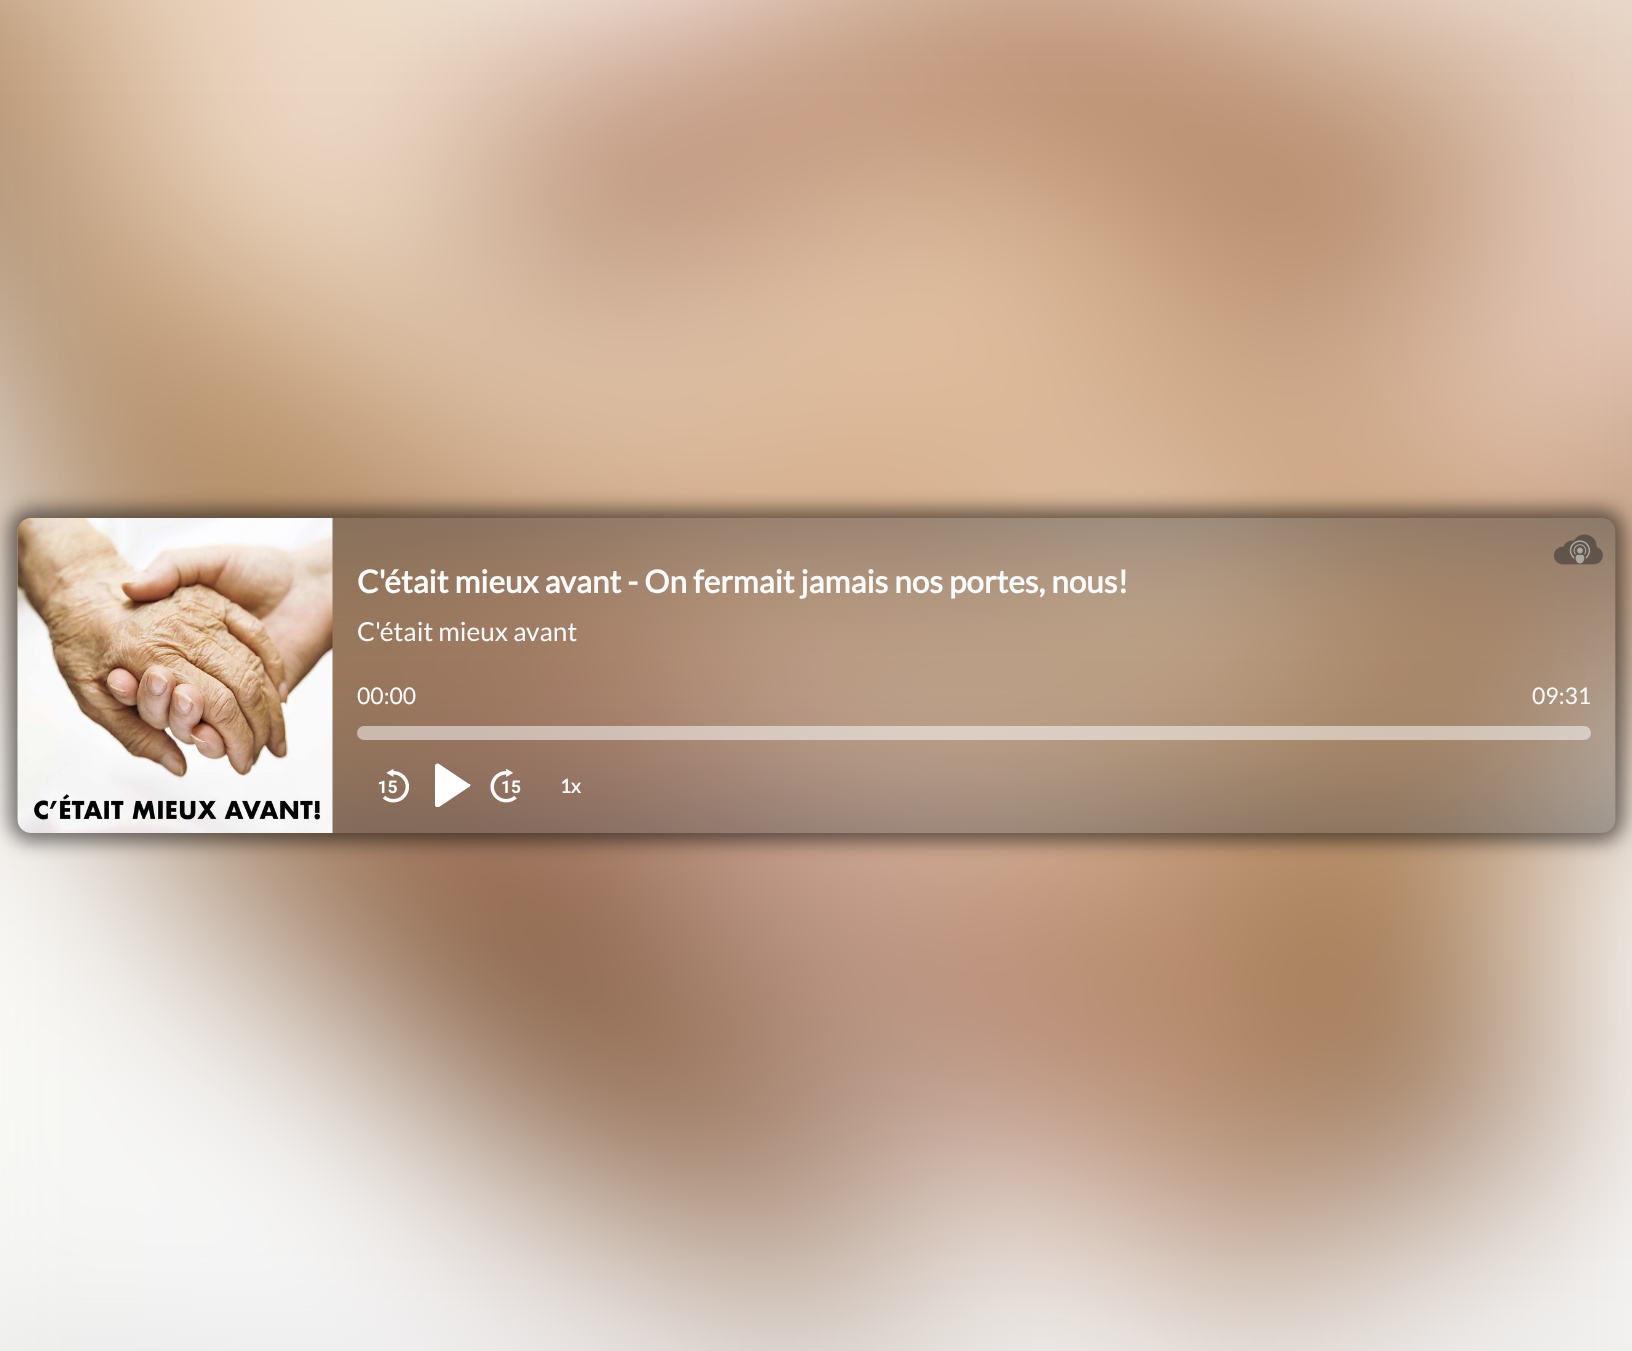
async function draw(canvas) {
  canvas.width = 1632;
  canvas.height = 1351;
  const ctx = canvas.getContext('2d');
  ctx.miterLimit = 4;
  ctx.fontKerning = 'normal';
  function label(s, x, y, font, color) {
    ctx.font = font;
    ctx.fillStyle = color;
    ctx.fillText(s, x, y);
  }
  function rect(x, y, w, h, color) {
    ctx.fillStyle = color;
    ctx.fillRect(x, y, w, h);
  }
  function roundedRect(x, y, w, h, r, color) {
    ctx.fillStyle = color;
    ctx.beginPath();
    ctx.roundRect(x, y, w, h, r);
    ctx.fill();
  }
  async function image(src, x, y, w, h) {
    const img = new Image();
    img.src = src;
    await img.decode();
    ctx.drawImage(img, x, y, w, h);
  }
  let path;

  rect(0, 0, 1632, 1351, '#fff');
  await image('assets/img1.png', 0, 0, 1632, 1351);
  ctx.fillStyle = '#00000080';
  ctx.filter = 'blur(9px)';
  ctx.beginPath();
  ctx.roundRect(9, 509, 1615, 333, 23);
  ctx.fill();
  ctx.filter = 'none';
  roundedRect(18, 518, 1597, 315, 14, '#666');
  await image('assets/img2.png', 17, 518, 1599, 315);
  roundedRect(18, 518, 1597, 315, 14, '#0000001a');
  await image('assets/img3.png', 17, 518, 316, 315);
  await image('assets/img4.png', 1553, 534, 50, 31);
  label('C\'était mieux avant - On fermait jamais nos portes, nous!', 357, 593, 'bold 31.5px Lato', '#fbfbfb');
  label('C\'était mieux avant', 357, 641, '26.25px Lato', '#fbfbfb');
  label('00:00', 357, 704, '23px Lato', '#fbfbfb');
  label('09:31', 1532, 704, '23px Lato', '#fbfbfb');
  roundedRect(357, 726, 1234, 14, 7, '#ffffff80');
  await image('assets/img5.png', 378, 768, 31, 35);
  ctx.fillStyle = '#fff';
  path = new Path2D('M439 764L469 784C471 784 471 786 469 787L439 807C438 807 437 807 436 807C436 807 435 806 435 805V766C435 764 437 763 439 764Z');
  ctx.fill(path);
  await image('assets/img6.png', 490, 768, 31, 35);
  label('1x', 560, 793, 'bold 19px Lato', '#fbfbfb');
}

draw(document.querySelector('canvas'));
